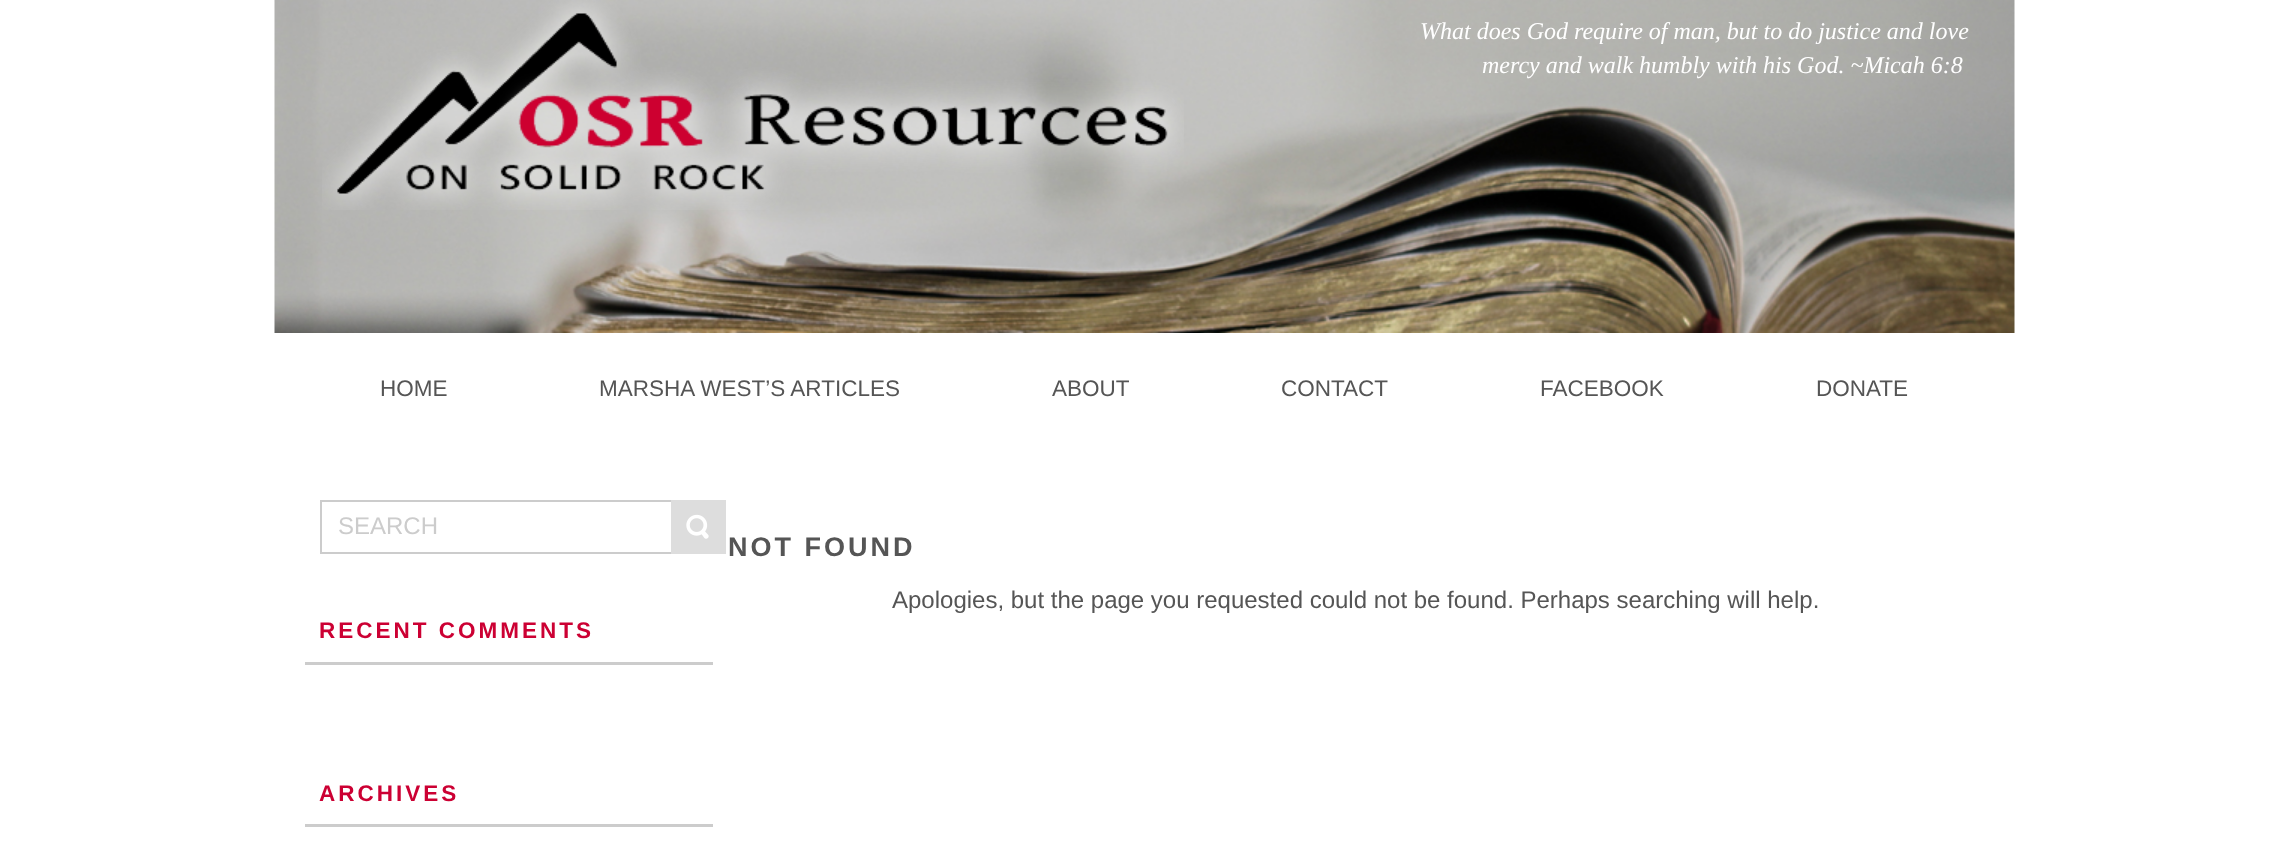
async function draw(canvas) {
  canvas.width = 2287;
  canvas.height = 859;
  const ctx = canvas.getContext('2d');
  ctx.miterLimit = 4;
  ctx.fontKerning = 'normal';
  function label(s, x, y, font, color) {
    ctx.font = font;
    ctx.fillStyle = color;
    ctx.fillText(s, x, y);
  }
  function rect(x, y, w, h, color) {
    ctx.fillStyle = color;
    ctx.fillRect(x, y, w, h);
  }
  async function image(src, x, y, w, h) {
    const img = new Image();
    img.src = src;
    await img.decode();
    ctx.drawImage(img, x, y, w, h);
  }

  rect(0, 0, 2287, 859, '#fff');
  await image('assets/img1.png', 274, 0, 1741, 333);
  await image('assets/img2.png', 322, 0, 862, 210);
  label('What does God require of man, but to do justice and love', 1420, 39, 'italic 24px Liberation Serif', '#fff');
  label('mercy and walk humbly with his God. ~Micah 6:8', 1482, 73, 'italic 24px Liberation Serif', '#fff');
  label('HOME', 380, 396, '22.5px Liberation Sans', '#555');
  label('MARSHA WEST’S ARTICLES', 599, 396, '22.5px Liberation Sans', '#555');
  label('ABOUT', 1052, 396, '22.5px Liberation Sans', '#555');
  label('CONTACT', 1281, 396, '22.5px Liberation Sans', '#555');
  label('FACEBOOK', 1540, 396, '22.5px Liberation Sans', '#555');
  label('DONATE', 1816, 396, '22.5px Liberation Sans', '#555');
  ctx.strokeStyle = '#ccc';
  ctx.lineWidth = 2;
  ctx.strokeRect(321, 501, 404, 52);
  label('SEARCH', 338, 534, '24px Liberation Sans', '#ccc');
  rect(671, 500, 55, 54, '#ddd');
  await image('assets/img3.png', 686, 514, 23, 25);
  rect(305, 662, 408, 3, '#ccc');
  ctx.letterSpacing = '3px';
  label('RECENT COMMENTS', 319, 638, 'bold 22.5px Liberation Sans', '#c03');
  rect(305, 824, 408, 3, '#ccc');
  label('ARCHIVES', 319, 801, 'bold 22.5px Liberation Sans', '#c03');
  label('NOT FOUND', 728, 556, 'bold 27px Liberation Sans', '#555');
  ctx.letterSpacing = '0px';
  label('Apologies, but the page you requested could not be found. Perhaps searching will help.', 892, 608, '24px Liberation Sans', '#555');
}

draw(document.querySelector('canvas'));
